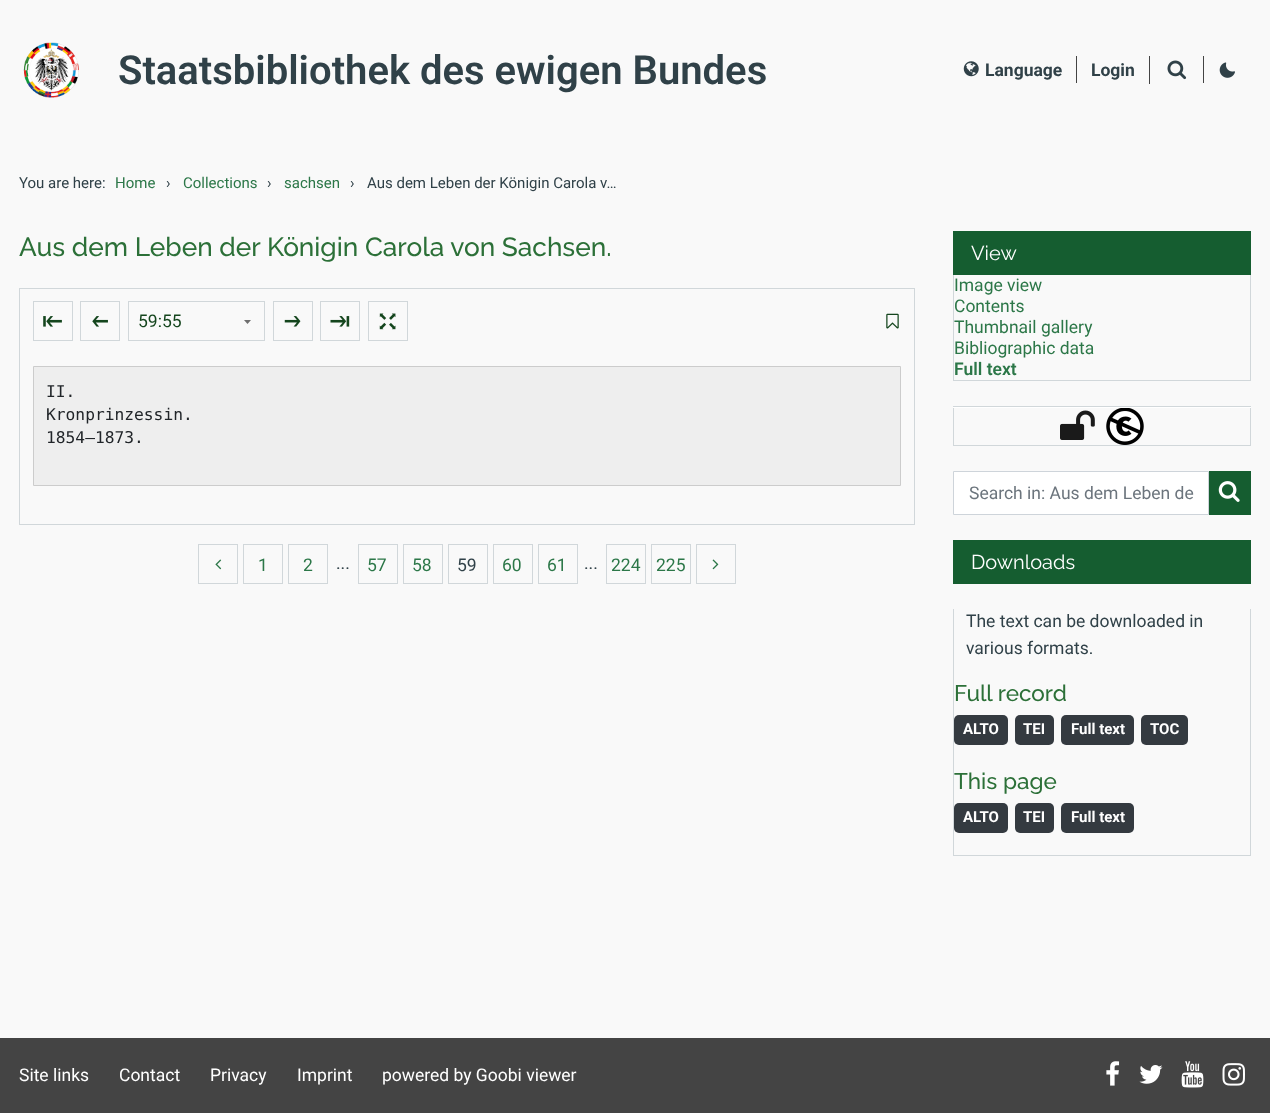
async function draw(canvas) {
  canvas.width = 1270;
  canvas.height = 1113;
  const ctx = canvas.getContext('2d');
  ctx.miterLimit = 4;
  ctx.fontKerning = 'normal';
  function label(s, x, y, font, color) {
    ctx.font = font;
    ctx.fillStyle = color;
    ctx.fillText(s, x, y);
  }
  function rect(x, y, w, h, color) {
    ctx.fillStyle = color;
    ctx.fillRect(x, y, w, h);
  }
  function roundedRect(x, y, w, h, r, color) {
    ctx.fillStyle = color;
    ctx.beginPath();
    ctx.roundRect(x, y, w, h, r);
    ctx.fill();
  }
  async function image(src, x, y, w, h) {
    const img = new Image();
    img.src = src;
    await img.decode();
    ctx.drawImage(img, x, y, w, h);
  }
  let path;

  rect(0, 0, 1270, 1113, '#f9f9f9');
  await image('assets/img1.png', 23, 42, 56, 56);
  label('Staatsbibliothek des ewigen Bundes', 118, 84, '600 40px Roboto', '#304148');
  await image('assets/img2.png', 963, 61, 16, 16);
  label('Language', 985, 76, 'bold 17.5px Roboto', '#304148');
  rect(1076, 56, 1, 27, '#444');
  label('Login', 1091, 76, 'bold 17.5px Roboto', '#304148');
  rect(1149, 56, 1, 28, '#444');
  await image('assets/img3.png', 1167, 60, 20, 20);
  rect(1203, 56, 1, 27, '#444');
  await image('assets/img4.png', 1219, 62, 16, 16);
  label('You are here:', 19, 188, '15px Roboto', '#304148');
  label('Home', 115, 188, '15px Roboto', '#2c7748');
  label('›', 166, 188, '15px Roboto', '#304148');
  label('Collections', 183, 188, '15px Roboto', '#2c7748');
  label('›', 267, 188, '15px Roboto', '#304148');
  label('sachsen', 284, 188, '15px Roboto', '#2c7748');
  label('›', 350, 188, '15px Roboto', '#304148');
  label('Aus dem Leben der Königin Carola v…', 367, 188, '15px Roboto', '#304148');
  label('Aus dem Leben der Königin Carola von Sachsen.', 19, 256, '500 26.25px Raleway', '#2c7038');
  rect(19, 288, 896, 1, '#d1d7da');
  rect(914, 288, 1, 66, '#d1d7da');
  rect(19, 288, 1, 66, '#d1d7da');
  ctx.strokeStyle = '#d1d7da';
  ctx.strokeRect(33.5, 301.5, 39, 39);
  await image('assets/img5.png', 43, 316, 19, 11);
  ctx.strokeRect(80.5, 301.5, 39, 39);
  await image('assets/img6.png', 92, 316, 16, 11);
  ctx.strokeRect(128.5, 301.5, 136, 39);
  label('59:55', 138, 327, '17.5px Roboto', '#14451d');
  ctx.fillStyle = '#6f6f6f';
  path = new Path2D('M244 320H251L247.5 324Z');
  ctx.fill(path);
  ctx.strokeRect(273.5, 301.5, 39, 39);
  await image('assets/img7.png', 284, 316, 17, 11);
  ctx.strokeRect(320.5, 301.5, 39, 39);
  await image('assets/img8.png', 330, 316, 20, 11);
  ctx.strokeRect(368.5, 301.5, 39, 39);
  await image('assets/img9.png', 379, 313, 17, 17);
  await image('assets/img10.png', 886, 313, 13, 16);
  rect(914, 354, 1, 171, '#d1d7da');
  rect(19, 524, 896, 1, '#d1d7da');
  rect(19, 354, 1, 171, '#d1d7da');
  ctx.fillStyle = '#eee';
  ctx.beginPath();
  ctx.rect(33.5, 366.5, 867, 119);
  ctx.fill();
  ctx.strokeStyle = '#ccc';
  ctx.stroke();
  label('II.', 46, 397, '16.25px DejaVu Sans Mono', '#212529');
  label('Kronprinzessin.', 46, 420, '16.25px DejaVu Sans Mono', '#212529');
  label('1854—1873.', 46, 443, '16.25px DejaVu Sans Mono', '#212529');
  ctx.strokeStyle = '#d1d7da';
  ctx.strokeRect(198.5, 544.5, 39, 39);
  await image('assets/img11.png', 215, 559, 7, 11);
  ctx.strokeRect(243.5, 544.5, 39, 39);
  label('1', 258, 571, '17.5px Roboto', '#2c7748');
  ctx.strokeRect(288.5, 544.5, 39, 39);
  label('2', 303, 571, '17.5px Roboto', '#2c7748');
  label('...', 336, 569, '17.5px Roboto', '#304148');
  ctx.strokeRect(358.5, 544.5, 39, 39);
  label('57', 367, 571, '17.5px Roboto', '#2c7748');
  ctx.strokeRect(403.5, 544.5, 39, 39);
  label('58', 412, 571, '17.5px Roboto', '#2c7748');
  ctx.strokeRect(448.5, 544.5, 39, 39);
  label('59', 457, 571, '17.5px Roboto', '#304148');
  ctx.strokeRect(493.5, 544.5, 39, 39);
  label('60', 502, 571, '17.5px Roboto', '#2c7748');
  ctx.strokeRect(538.5, 544.5, 39, 39);
  label('61', 547, 571, '17.5px Roboto', '#2c7748');
  label('...', 584, 569, '17.5px Roboto', '#304148');
  ctx.strokeRect(606.5, 544.5, 39, 39);
  label('224', 611, 571, '17.5px Roboto', '#2c7748');
  ctx.strokeRect(651.5, 544.5, 39, 39);
  label('225', 656, 571, '17.5px Roboto', '#2c7748');
  ctx.strokeRect(696.5, 544.5, 39, 39);
  await image('assets/img12.png', 712, 559, 7, 11);
  rect(953, 231, 298, 44, '#155d30');
  label('View', 971, 260, '20px Raleway', '#fff');
  rect(1250, 275, 1, 106, '#d1d7da');
  rect(953, 380, 298, 1, '#d1d7da');
  rect(953, 275, 1, 106, '#d1d7da');
  label('Image view', 954, 291, '17.5px Roboto', '#2c7748');
  label('Contents', 954, 312, '17.5px Roboto', '#2c7748');
  label('Thumbnail gallery', 954, 333, '17.5px Roboto', '#2c7748');
  label('Bibliographic data', 954, 354, '17.5px Roboto', '#2c7748');
  label('Full text', 954, 375, '600 17.5px Roboto', '#2c7748');
  rect(953, 407, 298, 1, '#fff');
  rect(953, 406, 298, 1, '#d1d7da');
  rect(1250, 408, 1, 38, '#d1d7da');
  rect(953, 445, 298, 1, '#d1d7da');
  rect(953, 408, 1, 38, '#d1d7da');
  await image('assets/img13.png', 1060, 410, 35, 30);
  await image('assets/img14.png', 1106, 408, 38, 37);
  ctx.fillStyle = '#fff';
  ctx.beginPath();
  ctx.rect(953.5, 471.5, 255, 43);
  ctx.fill();
  ctx.strokeStyle = '#ced4da';
  ctx.stroke();
  label('Search in: Aus dem Leben de', 969, 499, '17.5px Roboto', '#6c757d');
  rect(1209, 471, 42, 44, '#155d30');
  await image('assets/img15.png', 1218, 481, 22, 21);
  rect(953, 540, 298, 44, '#155d30');
  label('Downloads', 971, 569, '20px Raleway', '#fff');
  rect(1250, 609, 1, 247, '#d1d7da');
  rect(953, 855, 298, 1, '#d1d7da');
  rect(953, 609, 1, 247, '#d1d7da');
  label('The text can be downloaded in', 966, 627, '17.5px Roboto', '#304148');
  label('various formats.', 966, 654, '17.5px Roboto', '#304148');
  label('Full record', 954, 701, '500 22.5px Raleway', '#2c7038');
  roundedRect(954, 715, 54, 30, 5, '#343a40');
  label('ALTO', 963, 734, 'bold 15px Roboto', '#fff');
  roundedRect(1015, 715, 39, 30, 5, '#343a40');
  label('TEI', 1023, 734, 'bold 15px Roboto', '#fff');
  roundedRect(1061, 715, 73, 30, 5, '#343a40');
  label('Full text', 1071, 734, 'bold 15px Roboto', '#fff');
  roundedRect(1141, 715, 47, 30, 5, '#343a40');
  label('TOC', 1150, 734, 'bold 15px Roboto', '#fff');
  label('This page', 954, 789, '500 22.5px Raleway', '#2c7038');
  roundedRect(954, 803, 54, 30, 5, '#343a40');
  label('ALTO', 963, 822, 'bold 15px Roboto', '#fff');
  roundedRect(1015, 803, 39, 30, 5, '#343a40');
  label('TEI', 1023, 822, 'bold 15px Roboto', '#fff');
  roundedRect(1061, 803, 73, 30, 5, '#343a40');
  label('Full text', 1071, 822, 'bold 15px Roboto', '#fff');
  rect(0, 1038, 1270, 75, '#444');
  label('Site links', 19, 1081, '17.5px Roboto', '#fff');
  label('Contact', 119, 1081, '17.5px Roboto', '#fff');
  label('Privacy', 210, 1081, '17.5px Roboto', '#fff');
  label('Imprint', 297, 1081, '17.5px Roboto', '#fff');
  label('powered by Goobi viewer', 382, 1081, '17.5px Roboto', '#fff');
  await image('assets/img16.png', 1106, 1061, 14, 25);
  await image('assets/img17.png', 1139, 1065, 24, 19);
  await image('assets/img18.png', 1181, 1061, 23, 27);
  await image('assets/img19.png', 1222, 1063, 23, 23);
}

draw(document.querySelector('canvas'));
